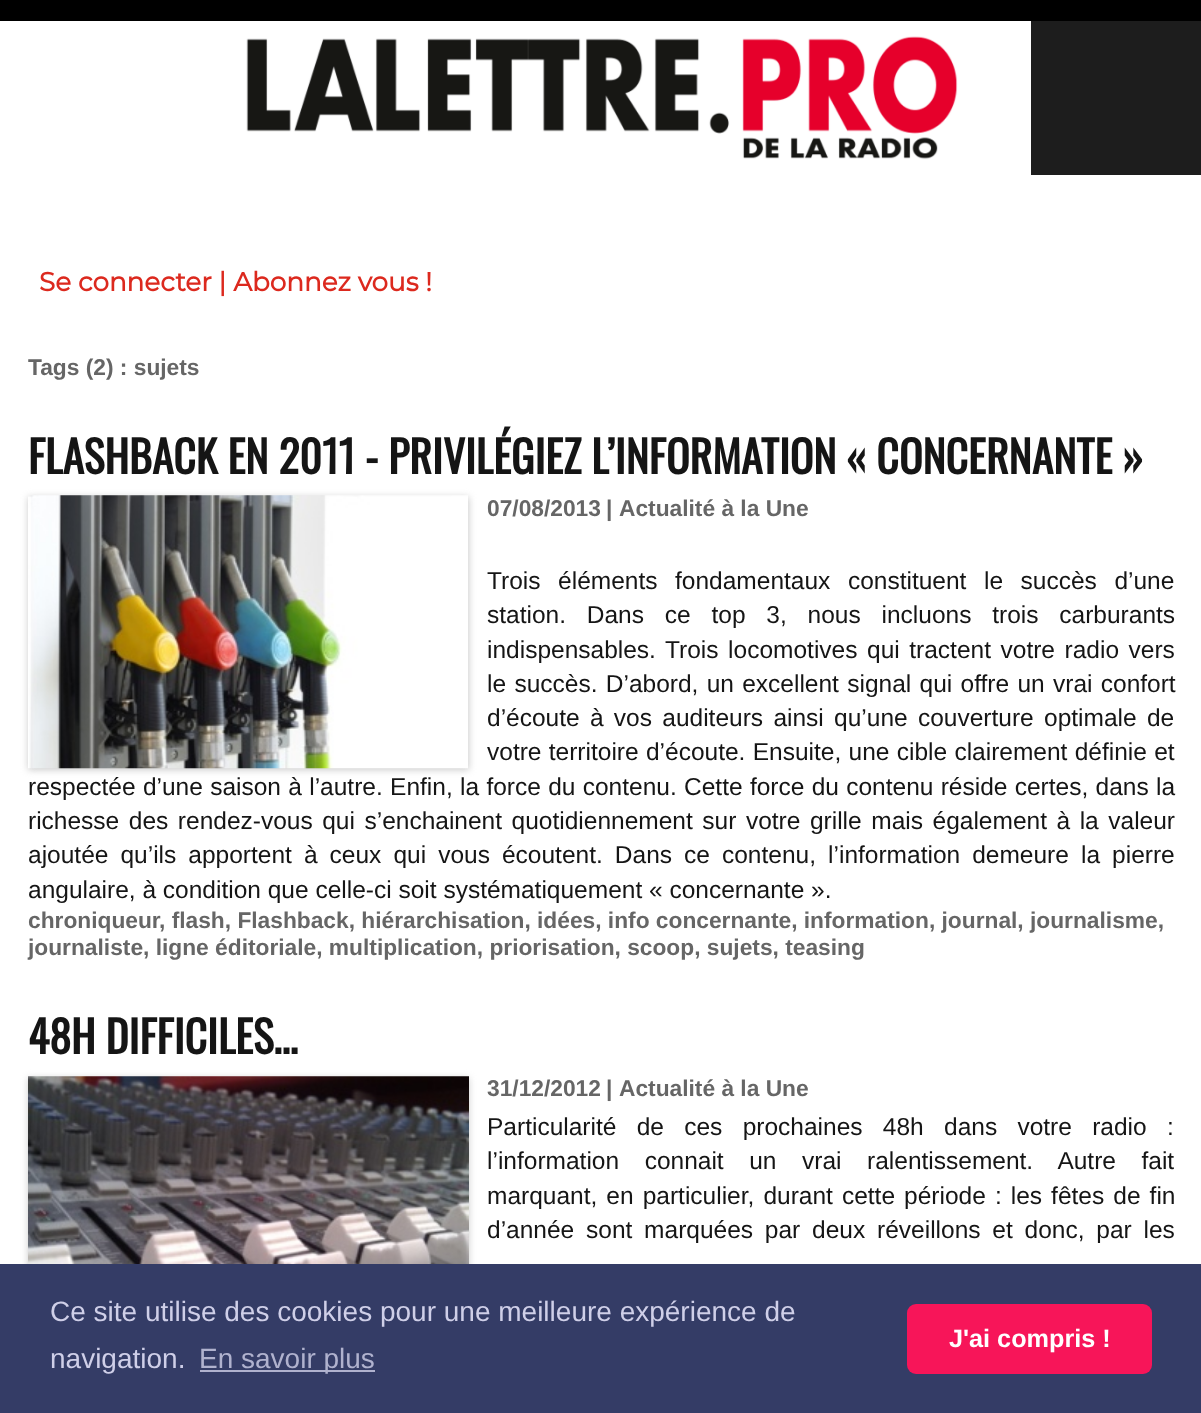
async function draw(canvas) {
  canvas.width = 1201;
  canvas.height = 1413;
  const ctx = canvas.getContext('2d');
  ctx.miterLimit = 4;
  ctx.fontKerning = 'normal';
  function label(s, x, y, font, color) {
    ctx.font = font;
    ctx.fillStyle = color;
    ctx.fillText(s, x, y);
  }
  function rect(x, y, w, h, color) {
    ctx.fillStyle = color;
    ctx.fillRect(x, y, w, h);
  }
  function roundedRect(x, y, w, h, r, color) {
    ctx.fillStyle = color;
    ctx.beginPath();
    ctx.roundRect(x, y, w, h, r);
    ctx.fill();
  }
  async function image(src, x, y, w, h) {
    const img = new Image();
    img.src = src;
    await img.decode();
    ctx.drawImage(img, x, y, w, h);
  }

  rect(0, 0, 1201, 1413, '#000');
  rect(0, 21, 1201, 1243, '#fff');
  await image('assets/img1.png', 246, 36, 712, 124);
  rect(1031, 21, 170, 154, '#1d1d1d');
  label('Se connecter | Abonnez vous !', 39, 291, 'bold 26.25px Montserrat', '#dc291e');
  label('Tags (2) : sujets', 28, 375, 'bold 22.75px Liberation Sans', '#666');
  label('FLASHBACK EN 2011 - PRIVILÉGIEZ L’INFORMATION « CONCERNANTE »', 28, 474, 'bold 43.75px Oswald', '#151515');
  ctx.fillStyle = '#ccc';
  ctx.filter = 'blur(3.5px)';
  ctx.beginPath();
  ctx.rect(28, 497, 441, 273);
  ctx.fill();
  ctx.filter = 'none';
  await image('assets/img2.png', 28, 495, 440, 274);
  label('07/08/2013', 487, 516, 'bold 22.75px Liberation Sans', '#666');
  label('|', 606, 516, 'bold 22.75px Liberation Sans', '#666');
  label('Actualité à la Une', 619, 516, 'bold 22.75px Liberation Sans', '#666');
  ctx.wordSpacing = '10.75px';
  label('Trois éléments fondamentaux constituent le succès d’une', 487, 589, '24.5px Liberation Sans', '#151515');
  ctx.wordSpacing = '14px';
  label('station. Dans ce top 3, nous incluons trois carburants', 487, 623, '24.5px Liberation Sans', '#151515');
  ctx.wordSpacing = '2.75px';
  label('indispensables. Trois locomotives qui tractent votre radio vers', 487, 658, '24.5px Liberation Sans', '#151515');
  ctx.wordSpacing = '1.5px';
  label('le succès. D’abord, un excellent signal qui offre un vrai confort', 487, 692, '24.5px Liberation Sans', '#151515');
  ctx.wordSpacing = '3.5px';
  label('d’écoute à vos auditeurs ainsi qu’une couverture optimale de', 487, 726, '24.5px Liberation Sans', '#151515');
  ctx.wordSpacing = '0.5px';
  label('votre territoire d’écoute. Ensuite, une cible clairement définie et', 487, 760, '24.5px Liberation Sans', '#151515');
  label('respectée d’une saison à l’autre. Enfin, la force du contenu. Cette force du contenu réside certes, dans la', 28, 795, '24.5px Liberation Sans', '#151515');
  ctx.wordSpacing = '2.75px';
  label('richesse des rendez-vous qui s’enchainent quotidiennement sur votre grille mais également à la valeur', 28, 829, '24.5px Liberation Sans', '#151515');
  ctx.wordSpacing = '5.25px';
  label('ajoutée qu’ils apportent à ceux qui vous écoutent. Dans ce contenu, l’information demeure la pierre', 28, 863, '24.5px Liberation Sans', '#151515');
  ctx.wordSpacing = '0px';
  label('angulaire, à condition que celle-ci soit systématiquement « concernante ».', 28, 898, '24.5px Liberation Sans', '#151515');
  label('chroniqueur', 28, 928, 'bold 22.75px Liberation Sans', '#666');
  label(', flash, Flashback, hiérarchisation, idées, info concernante, information, journal, journalisme,', 159, 928, 'bold 22.75px Liberation Sans', '#666');
  label('journaliste, ligne éditoriale, multiplication, priorisation, scoop, sujets, teasing', 28, 955, 'bold 22.75px Liberation Sans', '#666');
  label('48H DIFFICILES…', 28, 1054, 'bold 43.75px Oswald', '#151515');
  ctx.fillStyle = '#ccc';
  ctx.filter = 'blur(3.5px)';
  ctx.beginPath();
  ctx.rect(28, 1078, 441, 273);
  ctx.fill();
  ctx.filter = 'none';
  await image('assets/img3.png', 28, 1076, 441, 188);
  label('31/12/2012', 487, 1096, 'bold 22.75px Liberation Sans', '#666');
  label('|', 606, 1096, 'bold 22.75px Liberation Sans', '#666');
  label('Actualité à la Une', 619, 1096, 'bold 22.75px Liberation Sans', '#666');
  ctx.wordSpacing = '13.5px';
  label('Particularité de ces prochaines 48h dans votre radio :', 487, 1135, '24.5px Liberation Sans', '#151515');
  ctx.wordSpacing = '18.75px';
  label('l’information connait un vrai ralentissement. Autre fait', 487, 1169, '24.5px Liberation Sans', '#151515');
  ctx.wordSpacing = '2.25px';
  label('marquant, en particulier, durant cette période : les fêtes de fin', 487, 1204, '24.5px Liberation Sans', '#151515');
  ctx.wordSpacing = '5px';
  label('d’année sont marquées par deux réveillons et donc, par les', 487, 1238, '24.5px Liberation Sans', '#151515');
  rect(0, 1264, 1201, 149, '#343c66');
  ctx.wordSpacing = '0px';
  label('Ce site utilise des cookies pour une meilleure expérience de', 50, 1321, '28px Liberation Sans', '#cfcfe8');
  label('navigation.', 50, 1368, '28px Liberation Sans', '#cfcfe8');
  rect(200, 1370, 175, 2, '#b0b2ce');
  label('En savoir plus', 199, 1368, '28px Liberation Sans', '#b0b2ce');
  roundedRect(907, 1304, 245, 70, 9, '#f71559');
  label('J\'ai compris !', 949, 1347, 'bold 25.25px Liberation Sans', '#fff');
}

draw(document.querySelector('canvas'));
